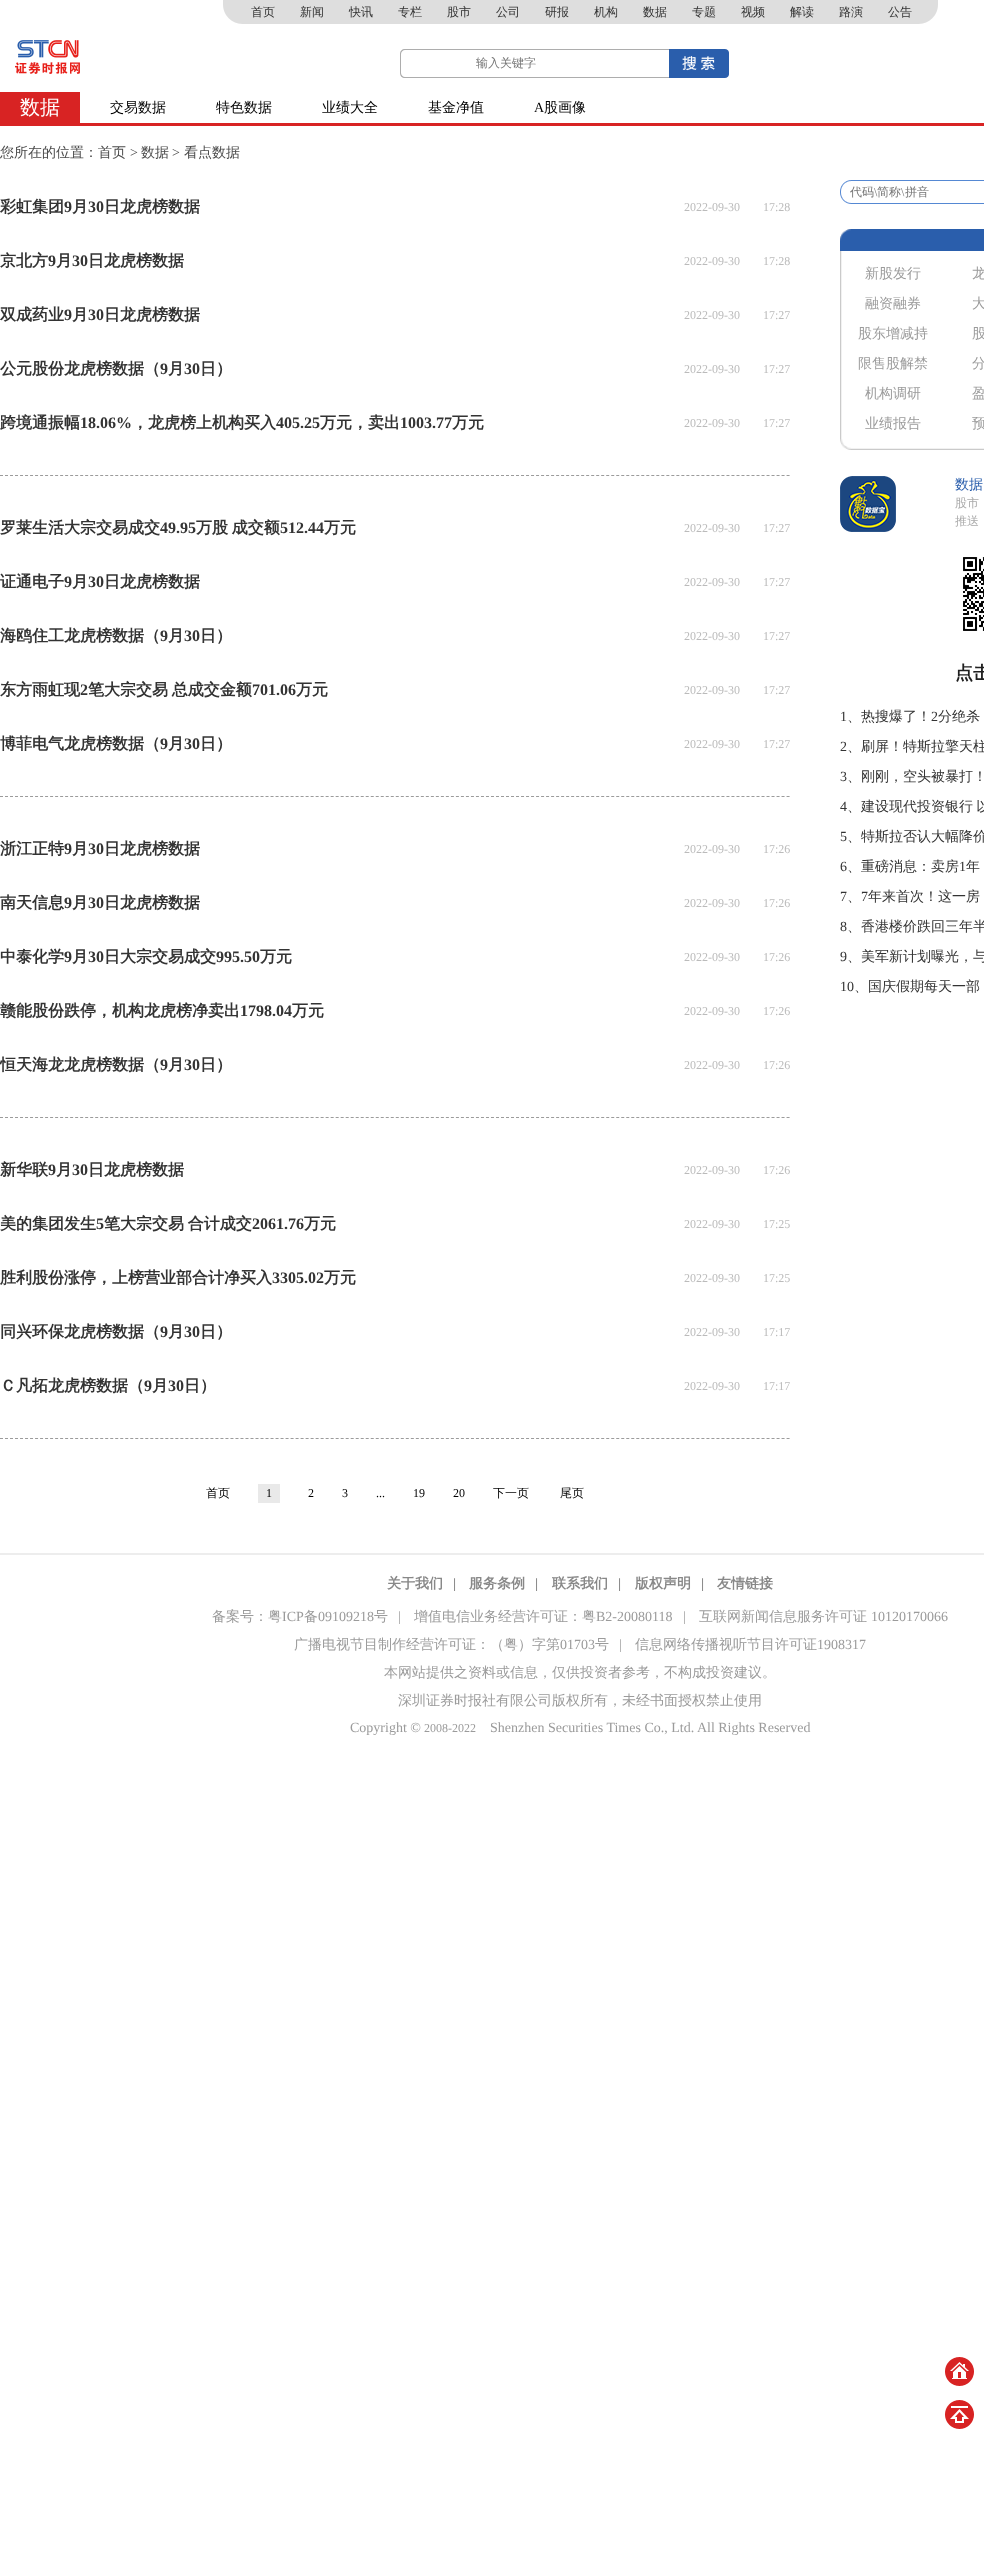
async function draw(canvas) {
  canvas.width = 984;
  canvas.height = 2563;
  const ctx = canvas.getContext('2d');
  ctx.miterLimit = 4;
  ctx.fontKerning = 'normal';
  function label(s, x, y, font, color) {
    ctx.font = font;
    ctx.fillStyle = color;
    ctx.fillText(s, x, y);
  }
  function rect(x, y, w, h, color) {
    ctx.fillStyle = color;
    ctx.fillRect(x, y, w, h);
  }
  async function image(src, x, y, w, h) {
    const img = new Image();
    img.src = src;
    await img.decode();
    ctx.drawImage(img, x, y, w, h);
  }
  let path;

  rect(0, 0, 984, 2563, '#fff');
  await image('assets/img1.png', 223, 0, 715, 24);
  label('首页', 251, 16, '500 12px WenQuanYi Zen Hei', '#333');
  label('新闻', 300, 16, '500 12px WenQuanYi Zen Hei', '#333');
  label('快讯', 349, 16, '500 12px WenQuanYi Zen Hei', '#333');
  label('专栏', 398, 16, '500 12px WenQuanYi Zen Hei', '#333');
  label('股市', 447, 16, '500 12px WenQuanYi Zen Hei', '#333');
  label('公司', 496, 16, '500 12px WenQuanYi Zen Hei', '#333');
  label('研报', 545, 16, '500 12px WenQuanYi Zen Hei', '#333');
  label('机构', 594, 16, '500 12px WenQuanYi Zen Hei', '#333');
  label('数据', 643, 16, '500 12px WenQuanYi Zen Hei', '#333');
  label('专题', 692, 16, '500 12px WenQuanYi Zen Hei', '#333');
  label('视频', 741, 16, '500 12px WenQuanYi Zen Hei', '#333');
  label('解读', 790, 16, '500 12px WenQuanYi Zen Hei', '#333');
  label('路演', 839, 16, '500 12px WenQuanYi Zen Hei', '#333');
  label('公告', 888, 16, '500 12px WenQuanYi Zen Hei', '#333');
  await image('assets/img2.png', 15, 40, 65, 34);
  ctx.fillStyle = '#adadad';
  path = new Path2D('M405 49H471V78H405C402 78 400 76 400 73V54C400 51 402 49 405 49ZM405 50H471V77H405C403 77 401 75 401 73V54C401 52 403 50 405 50Z');
  ctx.fill(path, 'evenodd');
  rect(471, 49, 198, 1, '#adadad');
  rect(471, 77, 198, 1, '#adadad');
  label('输入关键字', 476, 67, '500 12px WenQuanYi Zen Hei', '#757575');
  await image('assets/img3.png', 669, 49, 60, 29);
  rect(0, 123, 984, 3, '#d82323');
  rect(0, 92, 80, 31, '#d82323');
  label('数据', 20, 114, '500 20px WenQuanYi Zen Hei', '#fff');
  label('交易数据', 110, 112, '500 14px WenQuanYi Zen Hei', '#000');
  label('特色数据', 216, 112, '500 14px WenQuanYi Zen Hei', '#000');
  label('业绩大全', 322, 112, '500 14px WenQuanYi Zen Hei', '#000');
  label('基金净值', 428, 112, '500 14px WenQuanYi Zen Hei', '#000');
  label('A', 534, 112, '14px Liberation Serif', '#000');
  label('股画像', 544, 112, '500 14px WenQuanYi Zen Hei', '#000');
  label('您所在的位置：首页', 0, 157, '500 14px WenQuanYi Zen Hei', '#4b4b4b');
  label('>', 130, 157, '14px Liberation Serif', '#4b4b4b');
  label('数据', 141, 157, '500 14px WenQuanYi Zen Hei', '#4b4b4b');
  label('>', 172, 157, '14px Liberation Serif', '#4b4b4b');
  label('看点数据', 184, 157, '500 14px WenQuanYi Zen Hei', '#4b4b4b');
  label('彩虹集团', 0, 212, 'bold 16px WenQuanYi Zen Hei', '#333');
  label('9', 64, 212, 'bold 16px Liberation Serif', '#333');
  label('月', 72, 212, 'bold 16px WenQuanYi Zen Hei', '#333');
  label('30', 88, 212, 'bold 16px Liberation Serif', '#333');
  label('日龙虎榜数据', 104, 212, 'bold 16px WenQuanYi Zen Hei', '#333');
  label('2022-09-30', 684, 211, '12px Liberation Serif', '#bbb');
  label('17:28', 763, 211, '12px Liberation Serif', '#bbb');
  label('京北方', 0, 266, 'bold 16px WenQuanYi Zen Hei', '#333');
  label('9', 48, 266, 'bold 16px Liberation Serif', '#333');
  label('月', 56, 266, 'bold 16px WenQuanYi Zen Hei', '#333');
  label('30', 72, 266, 'bold 16px Liberation Serif', '#333');
  label('日龙虎榜数据', 88, 266, 'bold 16px WenQuanYi Zen Hei', '#333');
  label('2022-09-30', 684, 265, '12px Liberation Serif', '#bbb');
  label('17:28', 763, 265, '12px Liberation Serif', '#bbb');
  label('双成药业', 0, 320, 'bold 16px WenQuanYi Zen Hei', '#333');
  label('9', 64, 320, 'bold 16px Liberation Serif', '#333');
  label('月', 72, 320, 'bold 16px WenQuanYi Zen Hei', '#333');
  label('30', 88, 320, 'bold 16px Liberation Serif', '#333');
  label('日龙虎榜数据', 104, 320, 'bold 16px WenQuanYi Zen Hei', '#333');
  label('2022-09-30', 684, 319, '12px Liberation Serif', '#bbb');
  label('17:27', 763, 319, '12px Liberation Serif', '#bbb');
  label('公元股份龙虎榜数据（', 0, 374, 'bold 16px WenQuanYi Zen Hei', '#333');
  label('9', 160, 374, 'bold 16px Liberation Serif', '#333');
  label('月', 168, 374, 'bold 16px WenQuanYi Zen Hei', '#333');
  label('30', 184, 374, 'bold 16px Liberation Serif', '#333');
  label('日）', 200, 374, 'bold 16px WenQuanYi Zen Hei', '#333');
  label('2022-09-30', 684, 373, '12px Liberation Serif', '#bbb');
  label('17:27', 763, 373, '12px Liberation Serif', '#bbb');
  path = new Path2D('M0 475.5H790');
  ctx.strokeStyle = '#9b9b9b';
  ctx.setLineDash([3, 2.01]);
  ctx.stroke(path);
  label('跨境通振幅', 0, 428, 'bold 16px WenQuanYi Zen Hei', '#333');
  label('18.06%', 80, 428, 'bold 16px Liberation Serif', '#333');
  label('，龙虎榜上机构买入', 132, 428, 'bold 16px WenQuanYi Zen Hei', '#333');
  label('405.25', 276, 428, 'bold 16px Liberation Serif', '#333');
  label('万元，卖出', 320, 428, 'bold 16px WenQuanYi Zen Hei', '#333');
  label('1003.77', 400, 428, 'bold 16px Liberation Serif', '#333');
  label('万元', 452, 428, 'bold 16px WenQuanYi Zen Hei', '#333');
  label('2022-09-30', 684, 427, '12px Liberation Serif', '#bbb');
  label('17:27', 763, 427, '12px Liberation Serif', '#bbb');
  label('罗莱生活大宗交易成交', 0, 533, 'bold 16px WenQuanYi Zen Hei', '#333');
  label('49.95', 160, 533, 'bold 16px Liberation Serif', '#333');
  ctx.wordSpacing = '-1px';
  label('万股 成交额', 196, 533, 'bold 16px WenQuanYi Zen Hei', '#333');
  ctx.wordSpacing = '0px';
  label('512.44', 280, 533, 'bold 16px Liberation Serif', '#333');
  label('万元', 324, 533, 'bold 16px WenQuanYi Zen Hei', '#333');
  label('2022-09-30', 684, 532, '12px Liberation Serif', '#bbb');
  label('17:27', 763, 532, '12px Liberation Serif', '#bbb');
  label('证通电子', 0, 587, 'bold 16px WenQuanYi Zen Hei', '#333');
  label('9', 64, 587, 'bold 16px Liberation Serif', '#333');
  label('月', 72, 587, 'bold 16px WenQuanYi Zen Hei', '#333');
  label('30', 88, 587, 'bold 16px Liberation Serif', '#333');
  label('日龙虎榜数据', 104, 587, 'bold 16px WenQuanYi Zen Hei', '#333');
  label('2022-09-30', 684, 586, '12px Liberation Serif', '#bbb');
  label('17:27', 763, 586, '12px Liberation Serif', '#bbb');
  label('海鸥住工龙虎榜数据（', 0, 641, 'bold 16px WenQuanYi Zen Hei', '#333');
  label('9', 160, 641, 'bold 16px Liberation Serif', '#333');
  label('月', 168, 641, 'bold 16px WenQuanYi Zen Hei', '#333');
  label('30', 184, 641, 'bold 16px Liberation Serif', '#333');
  label('日）', 200, 641, 'bold 16px WenQuanYi Zen Hei', '#333');
  label('2022-09-30', 684, 640, '12px Liberation Serif', '#bbb');
  label('17:27', 763, 640, '12px Liberation Serif', '#bbb');
  label('东方雨虹现', 0, 695, 'bold 16px WenQuanYi Zen Hei', '#333');
  label('2', 80, 695, 'bold 16px Liberation Serif', '#333');
  ctx.wordSpacing = '-1px';
  label('笔大宗交易 总成交金额', 88, 695, 'bold 16px WenQuanYi Zen Hei', '#333');
  ctx.wordSpacing = '0px';
  label('701.06', 252, 695, 'bold 16px Liberation Serif', '#333');
  label('万元', 296, 695, 'bold 16px WenQuanYi Zen Hei', '#333');
  label('2022-09-30', 684, 694, '12px Liberation Serif', '#bbb');
  label('17:27', 763, 694, '12px Liberation Serif', '#bbb');
  path = new Path2D('M0 796.5H790');
  ctx.stroke(path);
  label('博菲电气龙虎榜数据（', 0, 749, 'bold 16px WenQuanYi Zen Hei', '#333');
  label('9', 160, 749, 'bold 16px Liberation Serif', '#333');
  label('月', 168, 749, 'bold 16px WenQuanYi Zen Hei', '#333');
  label('30', 184, 749, 'bold 16px Liberation Serif', '#333');
  label('日）', 200, 749, 'bold 16px WenQuanYi Zen Hei', '#333');
  label('2022-09-30', 684, 748, '12px Liberation Serif', '#bbb');
  label('17:27', 763, 748, '12px Liberation Serif', '#bbb');
  label('浙江正特', 0, 854, 'bold 16px WenQuanYi Zen Hei', '#333');
  label('9', 64, 854, 'bold 16px Liberation Serif', '#333');
  label('月', 72, 854, 'bold 16px WenQuanYi Zen Hei', '#333');
  label('30', 88, 854, 'bold 16px Liberation Serif', '#333');
  label('日龙虎榜数据', 104, 854, 'bold 16px WenQuanYi Zen Hei', '#333');
  label('2022-09-30', 684, 853, '12px Liberation Serif', '#bbb');
  label('17:26', 763, 853, '12px Liberation Serif', '#bbb');
  label('南天信息', 0, 908, 'bold 16px WenQuanYi Zen Hei', '#333');
  label('9', 64, 908, 'bold 16px Liberation Serif', '#333');
  label('月', 72, 908, 'bold 16px WenQuanYi Zen Hei', '#333');
  label('30', 88, 908, 'bold 16px Liberation Serif', '#333');
  label('日龙虎榜数据', 104, 908, 'bold 16px WenQuanYi Zen Hei', '#333');
  label('2022-09-30', 684, 907, '12px Liberation Serif', '#bbb');
  label('17:26', 763, 907, '12px Liberation Serif', '#bbb');
  label('中泰化学', 0, 962, 'bold 16px WenQuanYi Zen Hei', '#333');
  label('9', 64, 962, 'bold 16px Liberation Serif', '#333');
  label('月', 72, 962, 'bold 16px WenQuanYi Zen Hei', '#333');
  label('30', 88, 962, 'bold 16px Liberation Serif', '#333');
  label('日大宗交易成交', 104, 962, 'bold 16px WenQuanYi Zen Hei', '#333');
  label('995.50', 216, 962, 'bold 16px Liberation Serif', '#333');
  label('万元', 260, 962, 'bold 16px WenQuanYi Zen Hei', '#333');
  label('2022-09-30', 684, 961, '12px Liberation Serif', '#bbb');
  label('17:26', 763, 961, '12px Liberation Serif', '#bbb');
  label('赣能股份跌停，机构龙虎榜净卖出', 0, 1016, 'bold 16px WenQuanYi Zen Hei', '#333');
  label('1798.04', 240, 1016, 'bold 16px Liberation Serif', '#333');
  label('万元', 292, 1016, 'bold 16px WenQuanYi Zen Hei', '#333');
  label('2022-09-30', 684, 1015, '12px Liberation Serif', '#bbb');
  label('17:26', 763, 1015, '12px Liberation Serif', '#bbb');
  path = new Path2D('M0 1117.5H790');
  ctx.stroke(path);
  label('恒天海龙龙虎榜数据（', 0, 1070, 'bold 16px WenQuanYi Zen Hei', '#333');
  label('9', 160, 1070, 'bold 16px Liberation Serif', '#333');
  label('月', 168, 1070, 'bold 16px WenQuanYi Zen Hei', '#333');
  label('30', 184, 1070, 'bold 16px Liberation Serif', '#333');
  label('日）', 200, 1070, 'bold 16px WenQuanYi Zen Hei', '#333');
  label('2022-09-30', 684, 1069, '12px Liberation Serif', '#bbb');
  label('17:26', 763, 1069, '12px Liberation Serif', '#bbb');
  label('新华联', 0, 1175, 'bold 16px WenQuanYi Zen Hei', '#333');
  label('9', 48, 1175, 'bold 16px Liberation Serif', '#333');
  label('月', 56, 1175, 'bold 16px WenQuanYi Zen Hei', '#333');
  label('30', 72, 1175, 'bold 16px Liberation Serif', '#333');
  label('日龙虎榜数据', 88, 1175, 'bold 16px WenQuanYi Zen Hei', '#333');
  label('2022-09-30', 684, 1174, '12px Liberation Serif', '#bbb');
  label('17:26', 763, 1174, '12px Liberation Serif', '#bbb');
  label('美的集团发生', 0, 1229, 'bold 16px WenQuanYi Zen Hei', '#333');
  label('5', 96, 1229, 'bold 16px Liberation Serif', '#333');
  ctx.wordSpacing = '-1px';
  label('笔大宗交易 合计成交', 104, 1229, 'bold 16px WenQuanYi Zen Hei', '#333');
  ctx.wordSpacing = '0px';
  label('2061.76', 252, 1229, 'bold 16px Liberation Serif', '#333');
  label('万元', 304, 1229, 'bold 16px WenQuanYi Zen Hei', '#333');
  label('2022-09-30', 684, 1228, '12px Liberation Serif', '#bbb');
  label('17:25', 763, 1228, '12px Liberation Serif', '#bbb');
  label('胜利股份涨停，上榜营业部合计净买入', 0, 1283, 'bold 16px WenQuanYi Zen Hei', '#333');
  label('3305.02', 272, 1283, 'bold 16px Liberation Serif', '#333');
  label('万元', 324, 1283, 'bold 16px WenQuanYi Zen Hei', '#333');
  label('2022-09-30', 684, 1282, '12px Liberation Serif', '#bbb');
  label('17:25', 763, 1282, '12px Liberation Serif', '#bbb');
  label('同兴环保龙虎榜数据（', 0, 1337, 'bold 16px WenQuanYi Zen Hei', '#333');
  label('9', 160, 1337, 'bold 16px Liberation Serif', '#333');
  label('月', 168, 1337, 'bold 16px WenQuanYi Zen Hei', '#333');
  label('30', 184, 1337, 'bold 16px Liberation Serif', '#333');
  label('日）', 200, 1337, 'bold 16px WenQuanYi Zen Hei', '#333');
  label('2022-09-30', 684, 1336, '12px Liberation Serif', '#bbb');
  label('17:17', 763, 1336, '12px Liberation Serif', '#bbb');
  path = new Path2D('M0 1438.5H790');
  ctx.stroke(path);
  label('Ｃ凡拓龙虎榜数据（', 0, 1391, 'bold 16px WenQuanYi Zen Hei', '#333');
  label('9', 144, 1391, 'bold 16px Liberation Serif', '#333');
  label('月', 152, 1391, 'bold 16px WenQuanYi Zen Hei', '#333');
  label('30', 168, 1391, 'bold 16px Liberation Serif', '#333');
  label('日）', 184, 1391, 'bold 16px WenQuanYi Zen Hei', '#333');
  label('2022-09-30', 684, 1390, '12px Liberation Serif', '#bbb');
  label('17:17', 763, 1390, '12px Liberation Serif', '#bbb');
  label('首页', 206, 1497, '500 12px WenQuanYi Zen Hei', '#000');
  rect(258, 1484, 22, 19, '#e9e9e9');
  label('1', 266, 1497, '12px Liberation Serif', '#000');
  label('2', 308, 1497, '12px Liberation Serif', '#000');
  label('3', 342, 1497, '12px Liberation Serif', '#000');
  label('...', 376, 1497, '12px Liberation Serif', '#000');
  label('19', 413, 1497, '12px Liberation Serif', '#000');
  label('20', 453, 1497, '12px Liberation Serif', '#000');
  label('下一页', 493, 1497, '500 12px WenQuanYi Zen Hei', '#000');
  label('尾页', 560, 1497, '500 12px WenQuanYi Zen Hei', '#000');
  await image('assets/img4.png', 840, 180, 144, 24);
  label('代码', 850, 196, '500 12px WenQuanYi Zen Hei', '#757575');
  label('\\', 874, 196, '12px Liberation Serif', '#757575');
  label('简称', 877, 196, '500 12px WenQuanYi Zen Hei', '#757575');
  label('\\', 901, 196, '12px Liberation Serif', '#757575');
  label('拼音', 905, 196, '500 12px WenQuanYi Zen Hei', '#757575');
  await image('assets/img5.png', 840, 229, 144, 22);
  await image('assets/img6.png', 840, 251, 2, 188);
  label('新股发行', 865, 278, '500 14px WenQuanYi Zen Hei', '#9b9b9b');
  label('龙', 972, 278, '500 14px WenQuanYi Zen Hei', '#9b9b9b');
  label('融资融券', 865, 308, '500 14px WenQuanYi Zen Hei', '#9b9b9b');
  label('大', 972, 308, '500 14px WenQuanYi Zen Hei', '#9b9b9b');
  label('股东增减持', 858, 338, '500 14px WenQuanYi Zen Hei', '#9b9b9b');
  label('股', 972, 338, '500 14px WenQuanYi Zen Hei', '#9b9b9b');
  label('限售股解禁', 858, 368, '500 14px WenQuanYi Zen Hei', '#9b9b9b');
  label('分', 972, 368, '500 14px WenQuanYi Zen Hei', '#9b9b9b');
  label('机构调研', 865, 398, '500 14px WenQuanYi Zen Hei', '#9b9b9b');
  label('盈', 972, 398, '500 14px WenQuanYi Zen Hei', '#9b9b9b');
  label('业绩报告', 865, 428, '500 14px WenQuanYi Zen Hei', '#9b9b9b');
  label('预', 972, 428, '500 14px WenQuanYi Zen Hei', '#9b9b9b');
  await image('assets/img7.png', 840, 439, 144, 11);
  await image('assets/img8.png', 840, 476, 56, 56);
  label('数据', 955, 489, '500 14px WenQuanYi Zen Hei', '#2a5eac');
  label('股市', 955, 507, '500 12px WenQuanYi Zen Hei', '#aaa');
  label('推送', 955, 525, '500 12px WenQuanYi Zen Hei', '#aaa');
  await image('assets/img9.png', 963, 557, 21, 74);
  label('点击', 955, 679, 'bold 18px WenQuanYi Zen Hei', '#202020');
  label('1', 840, 721, '14px Liberation Serif', '#333');
  label('、热搜爆了！', 847, 721, '500 14px WenQuanYi Zen Hei', '#333');
  label('2', 931, 721, '14px Liberation Serif', '#333');
  label('分绝杀', 938, 721, '500 14px WenQuanYi Zen Hei', '#333');
  label('2', 840, 751, '14px Liberation Serif', '#333');
  label('、刷屏！特斯拉擎天柱', 847, 751, '500 14px WenQuanYi Zen Hei', '#333');
  label('3', 840, 781, '14px Liberation Serif', '#333');
  label('、刚刚，空头被暴打！', 847, 781, '500 14px WenQuanYi Zen Hei', '#333');
  label('4', 840, 811, '14px Liberation Serif', '#333');
  label('、', 847, 811, '500 14px WenQuanYi Zen Hei', '#333');
  ctx.wordSpacing = '-1px';
  label('建设现代投资银行 以', 861, 811, '500 14px WenQuanYi Zen Hei', '#333');
  ctx.wordSpacing = '0px';
  label('5', 840, 841, '14px Liberation Serif', '#333');
  label('、特斯拉否认大幅降价', 847, 841, '500 14px WenQuanYi Zen Hei', '#333');
  label('6', 840, 871, '14px Liberation Serif', '#333');
  label('、重磅消息：卖房', 847, 871, '500 14px WenQuanYi Zen Hei', '#333');
  label('1', 959, 871, '14px Liberation Serif', '#333');
  label('年', 966, 871, '500 14px WenQuanYi Zen Hei', '#333');
  label('7', 840, 901, '14px Liberation Serif', '#333');
  label('、', 847, 901, '500 14px WenQuanYi Zen Hei', '#333');
  label('7', 861, 901, '14px Liberation Serif', '#333');
  label('年来首次！这一房', 868, 901, '500 14px WenQuanYi Zen Hei', '#333');
  label('8', 840, 931, '14px Liberation Serif', '#333');
  label('、香港楼价跌回三年半', 847, 931, '500 14px WenQuanYi Zen Hei', '#333');
  label('9', 840, 961, '14px Liberation Serif', '#333');
  label('、美军新计划曝光，与', 847, 961, '500 14px WenQuanYi Zen Hei', '#333');
  label('10', 840, 991, '14px Liberation Serif', '#333');
  label('、', 854, 991, '500 14px WenQuanYi Zen Hei', '#333');
  ctx.wordSpacing = '-1px';
  label('国庆假期每天一部', 868, 991, '500 14px WenQuanYi Zen Hei', '#333');
  rect(0, 1553, 984, 2, '#ededed');
  ctx.wordSpacing = '0px';
  label('关于我们', 387, 1588, 'bold 14px WenQuanYi Zen Hei', '#888');
  label('|', 453, 1588, 'bold 14px Liberation Serif', '#888');
  label('服务条例', 469, 1588, 'bold 14px WenQuanYi Zen Hei', '#888');
  label('|', 535, 1588, 'bold 14px Liberation Serif', '#888');
  label('联系我们', 552, 1588, 'bold 14px WenQuanYi Zen Hei', '#888');
  label('|', 618, 1588, 'bold 14px Liberation Serif', '#888');
  label('版权声明', 635, 1588, 'bold 14px WenQuanYi Zen Hei', '#888');
  label('|', 701, 1588, 'bold 14px Liberation Serif', '#888');
  label('友情链接', 717, 1588, 'bold 14px WenQuanYi Zen Hei', '#888');
  label('备案号：粤', 212, 1621, '500 14px WenQuanYi Zen Hei', '#9b9b9b');
  label('ICP', 282, 1621, '14px Liberation Serif', '#9b9b9b');
  label('备', 304, 1621, '500 14px WenQuanYi Zen Hei', '#9b9b9b');
  label('09109218', 318, 1621, '14px Liberation Serif', '#9b9b9b');
  label('号', 374, 1621, '500 14px WenQuanYi Zen Hei', '#9b9b9b');
  label('|', 398, 1621, '14px Liberation Serif', '#9b9b9b');
  label('增值电信业务经营许可证：粤', 414, 1621, '500 14px WenQuanYi Zen Hei', '#9b9b9b');
  label('B2-20080118', 596, 1621, '14px Liberation Serif', '#9b9b9b');
  label('|', 683, 1621, '14px Liberation Serif', '#9b9b9b');
  label('互联网新闻信息服务许可证', 699, 1621, '500 14px WenQuanYi Zen Hei', '#9b9b9b');
  label('10120170066', 871, 1621, '14px Liberation Serif', '#9b9b9b');
  label('广播电视节目制作经营许可证：（粤）字第', 294, 1649, '500 14px WenQuanYi Zen Hei', '#9b9b9b');
  label('01703', 560, 1649, '14px Liberation Serif', '#9b9b9b');
  label('号', 595, 1649, '500 14px WenQuanYi Zen Hei', '#9b9b9b');
  label('|', 619, 1649, '14px Liberation Serif', '#9b9b9b');
  label('信息网络传播视听节目许可证', 635, 1649, '500 14px WenQuanYi Zen Hei', '#9b9b9b');
  label('1908317', 817, 1649, '14px Liberation Serif', '#9b9b9b');
  label('本网站提供之资料或信息，仅供投资者参考，不构成投资建议。', 384, 1677, '500 14px WenQuanYi Zen Hei', '#9b9b9b');
  label('深圳证券时报社有限公司版权所有，未经书面授权禁止使用', 398, 1705, '500 14px WenQuanYi Zen Hei', '#9b9b9b');
  label('Copyright ©', 350, 1732, '14px Liberation Serif', '#9b9b9b');
  label('2008-2022', 424, 1732, '12px Liberation Serif', '#9b9b9b');
  label('Shenzhen Securities Times Co., Ltd. All Rights Reserved', 490, 1732, '14px Liberation Serif', '#9b9b9b');
  await image('assets/img10.png', 945, 2357, 29, 29);
  await image('assets/img11.png', 945, 2400, 29, 29);
}

draw(document.querySelector('canvas'));
